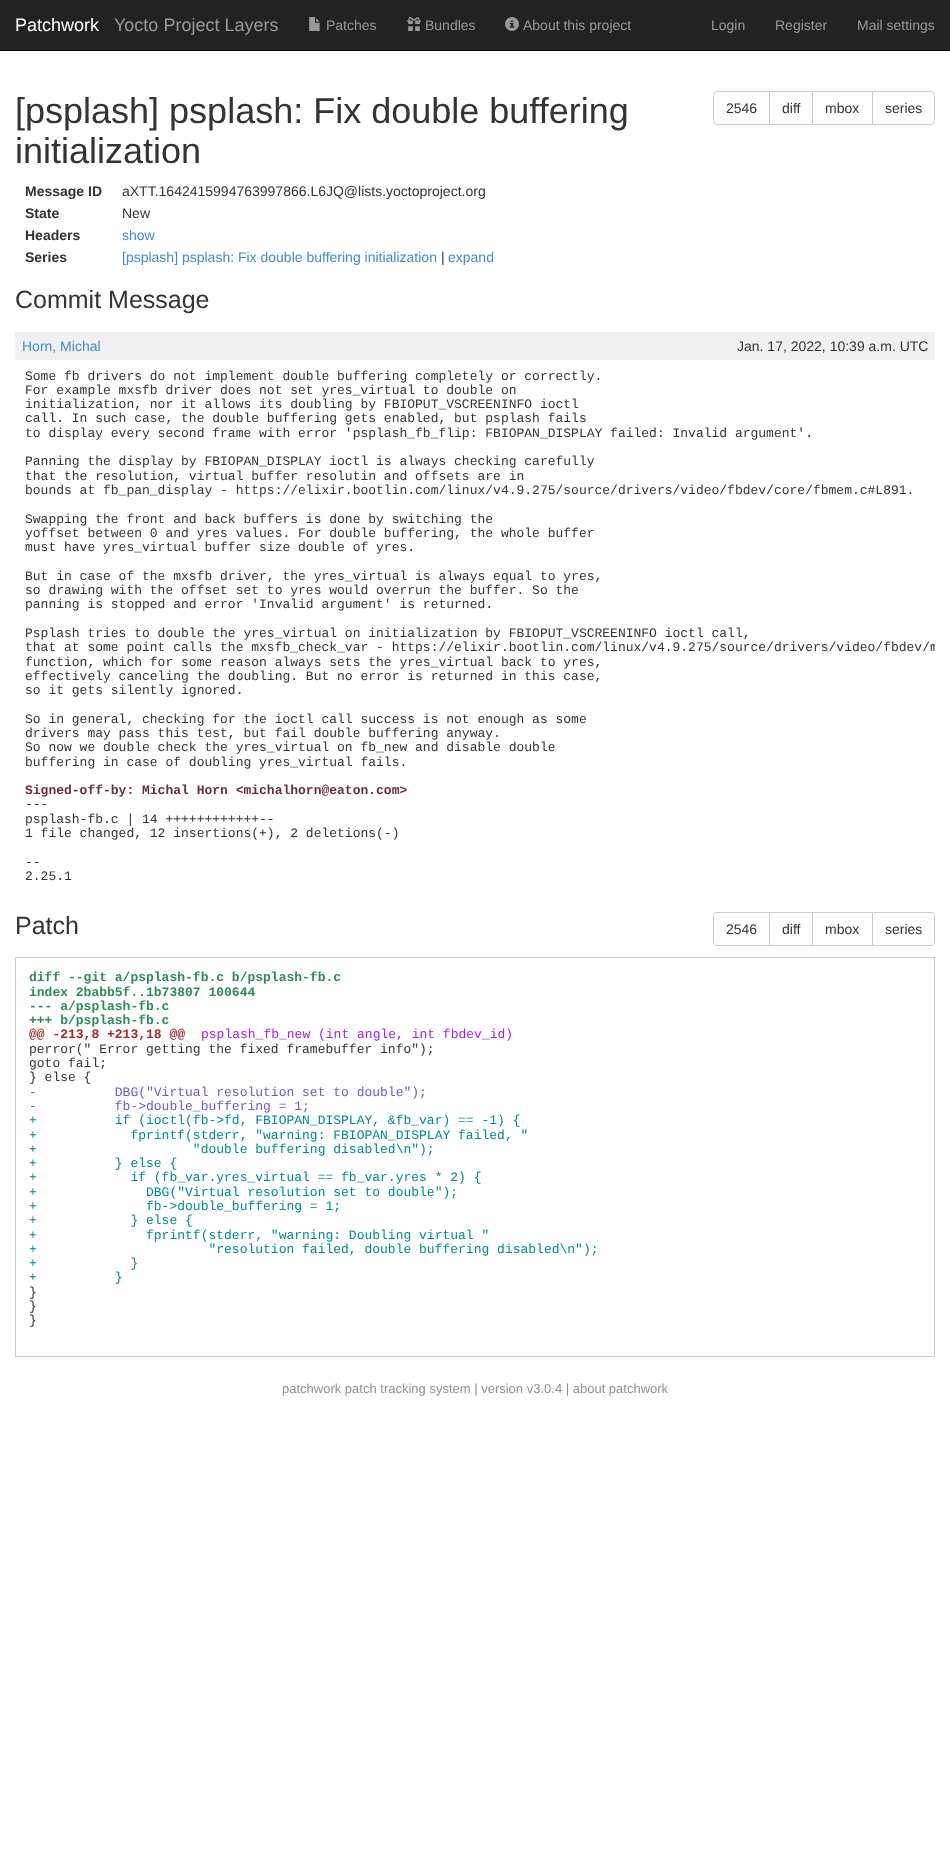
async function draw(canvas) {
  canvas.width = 950;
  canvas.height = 1861;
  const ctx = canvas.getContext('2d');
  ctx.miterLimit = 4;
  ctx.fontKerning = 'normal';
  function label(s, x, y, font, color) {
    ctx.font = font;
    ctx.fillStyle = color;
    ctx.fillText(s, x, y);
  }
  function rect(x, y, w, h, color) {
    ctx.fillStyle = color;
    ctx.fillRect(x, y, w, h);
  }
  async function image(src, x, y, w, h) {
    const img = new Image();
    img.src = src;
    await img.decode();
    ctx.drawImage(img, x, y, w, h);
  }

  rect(0, 0, 950, 1861, '#fff');
  rect(0, 0, 950, 50, '#222');
  rect(0, 50, 950, 1, '#080808');
  label('Patchwork', 15, 31, '18px Liberation Sans', '#fff');
  label('Yocto Project Layers', 114, 31, '18px Liberation Sans', '#999');
  await image('assets/img1.png', 309, 17, 11, 14);
  label('Patches', 326, 30, '14px Liberation Sans', '#999');
  await image('assets/img2.png', 407, 17, 14, 14);
  label('Bundles', 425, 30, '14px Liberation Sans', '#999');
  await image('assets/img3.png', 505, 17, 14, 14);
  label('About this project', 523, 30, '14px Liberation Sans', '#999');
  label('Login', 711, 30, '14px Liberation Sans', '#999');
  label('Register', 775, 30, '14px Liberation Sans', '#999');
  label('Mail settings', 857, 30, '14px Liberation Sans', '#999');
  label('[psplash] psplash: Fix double buffering', 15, 123, '36px Liberation Sans', '#333');
  label('initialization', 15, 163, '36px Liberation Sans', '#333');
  ctx.beginPath();
  ctx.roundRect(713.5, 91.5, 56, 33, [3.5, 0, 0, 3.5]);
  ctx.strokeStyle = '#ccc';
  ctx.stroke();
  label('2546', 726, 113, '14px Liberation Sans', '#333');
  ctx.strokeRect(769.5, 91.5, 43, 33);
  label('diff', 782, 113, '14px Liberation Sans', '#333');
  ctx.strokeRect(812.5, 91.5, 60, 33);
  label('mbox', 825, 113, '14px Liberation Sans', '#333');
  ctx.fillStyle = '#fff';
  ctx.beginPath();
  ctx.roundRect(872.5, 91.5, 62, 33, [0, 3.5, 3.5, 0]);
  ctx.fill();
  ctx.stroke();
  label('series', 885, 113, '14px Liberation Sans', '#333');
  label('Message ID', 25, 196, 'bold 14px Liberation Sans', '#333');
  label('aXTT.1642415994763997866.L6JQ@lists.yoctoproject.org', 122, 196, '14px Liberation Sans', '#333');
  label('State', 25, 218, 'bold 14px Liberation Sans', '#333');
  label('New', 122, 218, '14px Liberation Sans', '#333');
  label('Headers', 25, 240, 'bold 14px Liberation Sans', '#333');
  label('show', 122, 240, '14px Liberation Sans', '#428bca');
  label('Series', 25, 262, 'bold 14px Liberation Sans', '#333');
  label('[psplash] psplash: Fix double buffering initialization', 122, 262, '14px Liberation Sans', '#428bca');
  label('|', 441, 262, '14px Liberation Sans', '#333');
  label('expand', 448, 262, '14px Liberation Sans', '#428bca');
  label('Commit Message', 15, 308, '25px Liberation Sans', '#333');
  rect(15, 332, 920, 28, '#f0f0f0');
  label('Horn, Michal', 22, 351, '14px Liberation Sans', '#428bca');
  label('Jan. 17, 2022, 10:39 a.m. UTC', 737, 351, '14px Liberation Sans', '#333');
  label('Some fb drivers do not implement double buffering completely or correctly.', 25, 380, '13px Liberation Mono', '#333');
  label('For example mxsfb driver does not set yres_virtual to double on', 25, 394, '13px Liberation Mono', '#333');
  label('initialization, nor it allows its doubling by FBIOPUT_VSCREENINFO ioctl', 25, 408, '13px Liberation Mono', '#333');
  label('call. In such case, the double buffering gets enabled, but psplash fails', 25, 422, '13px Liberation Mono', '#333');
  label('to display every second frame with error \'psplash_fb_flip: FBIOPAN_DISPLAY failed: Invalid argument\'.', 25, 437, '13px Liberation Mono', '#333');
  label('Panning the display by FBIOPAN_DISPLAY ioctl is always checking carefully', 25, 465, '13px Liberation Mono', '#333');
  label('that the resolution, virtual buffer resolutin and offsets are in', 25, 480, '13px Liberation Mono', '#333');
  label('bounds at fb_pan_display - https://elixir.bootlin.com/linux/v4.9.275/source/drivers/video/fbdev/core/fbmem.c#L891.', 25, 494, '13px Liberation Mono', '#333');
  label('Swapping the front and back buffers is done by switching the', 25, 523, '13px Liberation Mono', '#333');
  label('yoffset between 0 and yres values. For double buffering, the whole buffer', 25, 537, '13px Liberation Mono', '#333');
  label('must have yres_virtual buffer size double of yres.', 25, 551, '13px Liberation Mono', '#333');
  label('But in case of the mxsfb driver, the yres_virtual is always equal to yres,', 25, 580, '13px Liberation Mono', '#333');
  label('so drawing with the offset set to yres would overrun the buffer. So the', 25, 594, '13px Liberation Mono', '#333');
  label('panning is stopped and error \'Invalid argument\' is returned.', 25, 608, '13px Liberation Mono', '#333');
  label('Psplash tries to double the yres_virtual on initialization by FBIOPUT_VSCREENINFO ioctl call,', 25, 637, '13px Liberation Mono', '#333');
  ctx.save();
  ctx.beginPath();
  ctx.rect(15, 360, 920, 534);
  ctx.clip();
  label('that at some point calls the mxsfb_check_var - https://elixir.bootlin.com/linux/v4.9.275/source/drivers/video/fbdev/m', 25, 651, '13px Liberation Mono', '#333');
  ctx.restore();
  label('function, which for some reason always sets the yres_virtual back to yres,', 25, 666, '13px Liberation Mono', '#333');
  label('effectively canceling the doubling. But no error is returned in this case,', 25, 680, '13px Liberation Mono', '#333');
  label('so it gets silently ignored.', 25, 694, '13px Liberation Mono', '#333');
  label('So in general, checking for the ioctl call success is not enough as some', 25, 723, '13px Liberation Mono', '#333');
  label('drivers may pass this test, but fail double buffering anyway.', 25, 737, '13px Liberation Mono', '#333');
  label('So now we double check the yres_virtual on fb_new and disable double', 25, 751, '13px Liberation Mono', '#333');
  label('buffering in case of doubling yres_virtual fails.', 25, 766, '13px Liberation Mono', '#333');
  label('Signed-off-by: Michal Horn <michalhorn@eaton.com>', 25, 794, 'bold 13px Liberation Mono', '#672d45');
  label('---', 25, 808, '13px Liberation Mono', '#333');
  label('psplash-fb.c | 14 ++++++++++++--', 25, 823, '13px Liberation Mono', '#333');
  label('1 file changed, 12 insertions(+), 2 deletions(-)', 25, 837, '13px Liberation Mono', '#333');
  label('--', 25, 866, '13px Liberation Mono', '#333');
  label('2.25.1', 25, 880, '13px Liberation Mono', '#333');
  label('Patch', 15, 934, '25px Liberation Sans', '#333');
  ctx.beginPath();
  ctx.roundRect(713.5, 912.5, 56, 33, [3.5, 0, 0, 3.5]);
  ctx.stroke();
  label('2546', 726, 934, '14px Liberation Sans', '#333');
  ctx.strokeRect(769.5, 912.5, 43, 33);
  label('diff', 782, 934, '14px Liberation Sans', '#333');
  ctx.strokeRect(812.5, 912.5, 60, 33);
  label('mbox', 825, 934, '14px Liberation Sans', '#333');
  ctx.fillStyle = '#fff';
  ctx.beginPath();
  ctx.roundRect(872.5, 912.5, 62, 33, [0, 3.5, 3.5, 0]);
  ctx.fill();
  ctx.stroke();
  label('series', 885, 934, '14px Liberation Sans', '#333');
  ctx.strokeRect(15.5, 957.5, 919, 399);
  label('diff --git a/psplash-fb.c b/psplash-fb.c', 29, 981, 'bold 13px Liberation Mono', '#2e8b57');
  label('index 2babb5f..1b73807 100644', 29, 996, 'bold 13px Liberation Mono', '#2e8b57');
  label('--- a/psplash-fb.c', 29, 1010, 'bold 13px Liberation Mono', '#2e8b57');
  label('+++ b/psplash-fb.c', 29, 1024, 'bold 13px Liberation Mono', '#2e8b57');
  label('@@ -213,8 +213,18 @@', 29, 1038, 'bold 13px Liberation Mono', '#a52a2a');
  label('psplash_fb_new (int angle, int fbdev_id)', 201, 1038, '13px Liberation Mono', '#a020f0');
  label('perror(" Error getting the fixed framebuffer info");', 29, 1053, '13px Liberation Mono', '#333');
  label('goto fail;', 29, 1067, '13px Liberation Mono', '#333');
  label('} else {', 29, 1081, '13px Liberation Mono', '#333');
  label('-          DBG("Virtual resolution set to double");', 29, 1096, '13px Liberation Mono', '#6a5acd');
  label('-          fb->double_buffering = 1;', 29, 1110, '13px Liberation Mono', '#6a5acd');
  label('+          if (ioctl(fb->fd, FBIOPAN_DISPLAY, &fb_var) == -1) {', 29, 1124, '13px Liberation Mono', '#008b8b');
  label('+            fprintf(stderr, "warning: FBIOPAN_DISPLAY failed, "', 29, 1139, '13px Liberation Mono', '#008b8b');
  label('+                    "double buffering disabled\\n");', 29, 1153, '13px Liberation Mono', '#008b8b');
  label('+          } else {', 29, 1167, '13px Liberation Mono', '#008b8b');
  label('+            if (fb_var.yres_virtual == fb_var.yres * 2) {', 29, 1181, '13px Liberation Mono', '#008b8b');
  label('+              DBG("Virtual resolution set to double");', 29, 1196, '13px Liberation Mono', '#008b8b');
  label('+              fb->double_buffering = 1;', 29, 1210, '13px Liberation Mono', '#008b8b');
  label('+            } else {', 29, 1224, '13px Liberation Mono', '#008b8b');
  label('+              fprintf(stderr, "warning: Doubling virtual "', 29, 1239, '13px Liberation Mono', '#008b8b');
  label('+                      "resolution failed, double buffering disabled\\n");', 29, 1253, '13px Liberation Mono', '#008b8b');
  label('+            }', 29, 1267, '13px Liberation Mono', '#008b8b');
  label('+          }', 29, 1281, '13px Liberation Mono', '#008b8b');
  label('}', 29, 1296, '13px Liberation Mono', '#333');
  label('}', 29, 1310, '13px Liberation Mono', '#333');
  label('}', 29, 1324, '13px Liberation Mono', '#333');
  label('patchwork patch tracking system | version v3.0.4 | about patchwork', 282, 1393, '13px Liberation Sans', '#909090');
}

draw(document.querySelector('canvas'));
